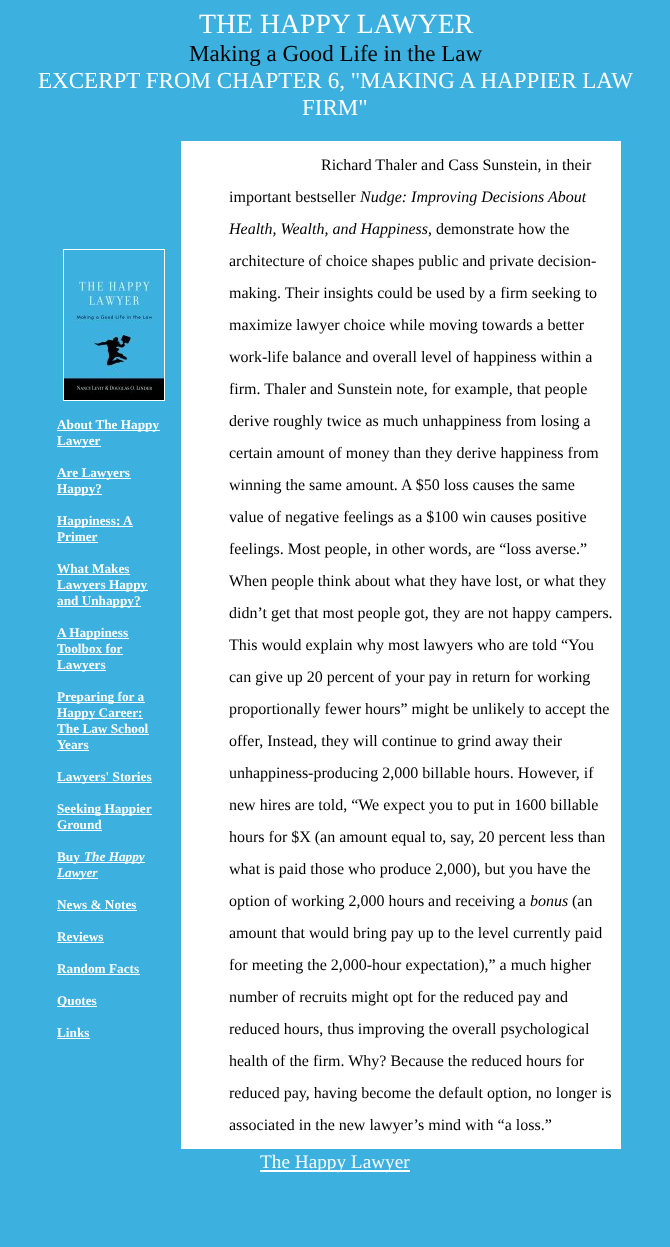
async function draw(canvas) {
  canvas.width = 670;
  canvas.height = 1247;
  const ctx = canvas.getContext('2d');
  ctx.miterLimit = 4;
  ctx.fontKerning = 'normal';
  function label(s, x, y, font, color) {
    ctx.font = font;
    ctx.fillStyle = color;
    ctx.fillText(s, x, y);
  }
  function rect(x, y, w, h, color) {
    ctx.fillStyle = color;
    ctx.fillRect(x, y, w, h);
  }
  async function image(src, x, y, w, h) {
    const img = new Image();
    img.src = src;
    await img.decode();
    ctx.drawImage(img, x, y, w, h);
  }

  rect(0, 0, 670, 1247, '#3cb0df');
  label('THE HAPPY LAWYER', 199, 33, '27.75px Liberation Serif', '#fff');
  label('Making a Good Life in the Law', 189, 61, '23.05px Liberation Serif', '#000');
  label('EXCERPT FROM CHAPTER 6, "MAKING A HAPPIER LAW', 38, 88, '23.05px Liberation Serif', '#fff');
  label('FIRM"', 302, 115, '23.05px Liberation Serif', '#fff');
  ctx.strokeStyle = '#fff';
  ctx.strokeRect(63.5, 249.5, 101, 151);
  await image('assets/img1.png', 64, 280, 100, 120);
  rect(57, 430, 103, 1, '#fff');
  label('About The Happy', 57, 429, 'bold 13.25px Liberation Serif', '#fff');
  rect(57, 446, 44, 1, '#fff');
  label('Lawyer', 57, 445, 'bold 13.25px Liberation Serif', '#fff');
  rect(57, 478, 74, 1, '#fff');
  label('Are Lawyers', 57, 477, 'bold 13.25px Liberation Serif', '#fff');
  rect(57, 494, 45, 1, '#fff');
  label('Happy?', 57, 493, 'bold 13.25px Liberation Serif', '#fff');
  rect(57, 526, 76, 1, '#fff');
  label('Happiness: A', 57, 525, 'bold 13.25px Liberation Serif', '#fff');
  label('Primer', 57, 541, 'bold 13.25px Liberation Serif', '#fff');
  rect(57, 542, 41, 1, '#fff');
  label('What Makes', 57, 573, 'bold 13.25px Liberation Serif', '#fff');
  rect(57, 574, 73, 1, '#fff');
  rect(57, 590, 91, 1, '#fff');
  label('Lawyers Happy', 57, 589, 'bold 13.25px Liberation Serif', '#fff');
  rect(57, 606, 84, 1, '#fff');
  label('and Unhappy?', 57, 605, 'bold 13.25px Liberation Serif', '#fff');
  rect(57, 638, 72, 1, '#fff');
  label('A Happiness', 57, 637, 'bold 13.25px Liberation Serif', '#fff');
  label('Toolbox for', 57, 653, 'bold 13.25px Liberation Serif', '#fff');
  rect(57, 654, 66, 1, '#fff');
  rect(57, 670, 49, 1, '#fff');
  label('Lawyers', 57, 669, 'bold 13.25px Liberation Serif', '#fff');
  rect(57, 702, 88, 1, '#fff');
  label('Preparing for a', 57, 701, 'bold 13.25px Liberation Serif', '#fff');
  rect(57, 718, 86, 1, '#fff');
  label('Happy Career:', 57, 717, 'bold 13.25px Liberation Serif', '#fff');
  label('The Law School', 57, 733, 'bold 13.25px Liberation Serif', '#fff');
  rect(57, 734, 92, 1, '#fff');
  label('Years', 57, 749, 'bold 13.25px Liberation Serif', '#fff');
  rect(57, 750, 32, 1, '#fff');
  rect(57, 782, 95, 1, '#fff');
  label('Lawyers\' Stories', 57, 781, 'bold 13.25px Liberation Serif', '#fff');
  rect(57, 814, 95, 1, '#fff');
  label('Seeking Happier', 57, 813, 'bold 13.25px Liberation Serif', '#fff');
  label('Ground', 57, 829, 'bold 13.25px Liberation Serif', '#fff');
  rect(57, 830, 45, 1, '#fff');
  rect(57, 862, 88, 1, '#fff');
  label('Buy', 57, 861, 'bold 13.25px Liberation Serif', '#fff');
  label('The Happy', 84, 861, 'italic bold 13.25px Liberation Serif', '#fff');
  rect(57, 878, 41, 1, '#fff');
  label('Lawyer', 57, 877, 'italic bold 13.25px Liberation Serif', '#fff');
  label('News & Notes', 57, 909, 'bold 13.25px Liberation Serif', '#fff');
  rect(57, 910, 80, 1, '#fff');
  label('Reviews', 57, 941, 'bold 13.25px Liberation Serif', '#fff');
  rect(57, 942, 47, 1, '#fff');
  label('Random Facts', 57, 973, 'bold 13.25px Liberation Serif', '#fff');
  rect(57, 974, 83, 1, '#fff');
  rect(57, 1006, 40, 1, '#fff');
  label('Quotes', 57, 1005, 'bold 13.25px Liberation Serif', '#fff');
  label('Links', 57, 1037, 'bold 13.25px Liberation Serif', '#fff');
  rect(57, 1038, 33, 1, '#fff');
  rect(181, 141, 440, 1008, '#fff');
  label('Richard Thaler and Cass Sunstein, in their', 321, 170, '16px Liberation Serif', '#000');
  label('important bestseller', 229, 202, '16px Liberation Serif', '#000');
  label('Nudge: Improving Decisions About', 360, 202, 'italic 16px Liberation Serif', '#000');
  label('Health, Wealth, and Happiness', 229, 234, 'italic 16px Liberation Serif', '#000');
  label(', demonstrate how the', 428, 234, '16px Liberation Serif', '#000');
  label('architecture of choice shapes public and private decision-', 229, 266, '16px Liberation Serif', '#000');
  label('making. Their insights could be used by a firm seeking to', 229, 298, '16px Liberation Serif', '#000');
  label('maximize lawyer choice while moving towards a better', 229, 330, '16px Liberation Serif', '#000');
  label('work-life balance and overall level of happiness within a', 229, 362, '16px Liberation Serif', '#000');
  label('firm. Thaler and Sunstein note, for example, that people', 229, 394, '16px Liberation Serif', '#000');
  label('derive roughly twice as much unhappiness from losing a', 229, 426, '16px Liberation Serif', '#000');
  label('certain amount of money than they derive happiness from', 229, 458, '16px Liberation Serif', '#000');
  label('winning the same amount. A $50 loss causes the same', 229, 490, '16px Liberation Serif', '#000');
  label('value of negative feelings as a $100 win causes positive', 229, 522, '16px Liberation Serif', '#000');
  label('feelings. Most people, in other words, are “loss averse.”', 229, 554, '16px Liberation Serif', '#000');
  label('When people think about what they have lost, or what they', 229, 586, '16px Liberation Serif', '#000');
  label('didn’t get that most people got, they are not happy campers.', 229, 618, '16px Liberation Serif', '#000');
  label('This would explain why most lawyers who are told “You', 229, 650, '16px Liberation Serif', '#000');
  label('can give up 20 percent of your pay in return for working', 229, 682, '16px Liberation Serif', '#000');
  label('proportionally fewer hours” might be unlikely to accept the', 229, 714, '16px Liberation Serif', '#000');
  label('offer, Instead, they will continue to grind away their', 229, 746, '16px Liberation Serif', '#000');
  label('unhappiness-producing 2,000 billable hours. However, if', 229, 778, '16px Liberation Serif', '#000');
  label('new hires are told, “We expect you to put in 1600 billable', 229, 810, '16px Liberation Serif', '#000');
  label('hours for $X (an amount equal to, say, 20 percent less than', 229, 842, '16px Liberation Serif', '#000');
  label('what is paid those who produce 2,000), but you have the', 229, 874, '16px Liberation Serif', '#000');
  label('option of working 2,000 hours and receiving a', 229, 906, '16px Liberation Serif', '#000');
  label('bonus', 530, 906, 'italic 16px Liberation Serif', '#000');
  label('(an', 572, 906, '16px Liberation Serif', '#000');
  label('amount that would bring pay up to the level currently paid', 229, 938, '16px Liberation Serif', '#000');
  label('for meeting the 2,000-hour expectation),” a much higher', 229, 970, '16px Liberation Serif', '#000');
  label('number of recruits might opt for the reduced pay and', 229, 1002, '16px Liberation Serif', '#000');
  label('reduced hours, thus improving the overall psychological', 229, 1034, '16px Liberation Serif', '#000');
  label('health of the firm. Why? Because the reduced hours for', 229, 1066, '16px Liberation Serif', '#000');
  label('reduced pay, having become the default option, no longer is', 229, 1098, '16px Liberation Serif', '#000');
  label('associated in the new lawyer’s mind with “a loss.”', 229, 1130, '16px Liberation Serif', '#000');
  rect(260, 1170, 150, 2, '#fff');
  label('The Happy Lawyer', 260, 1168, '19.25px Liberation Serif', '#fff');
}

draw(document.querySelector('canvas'));
